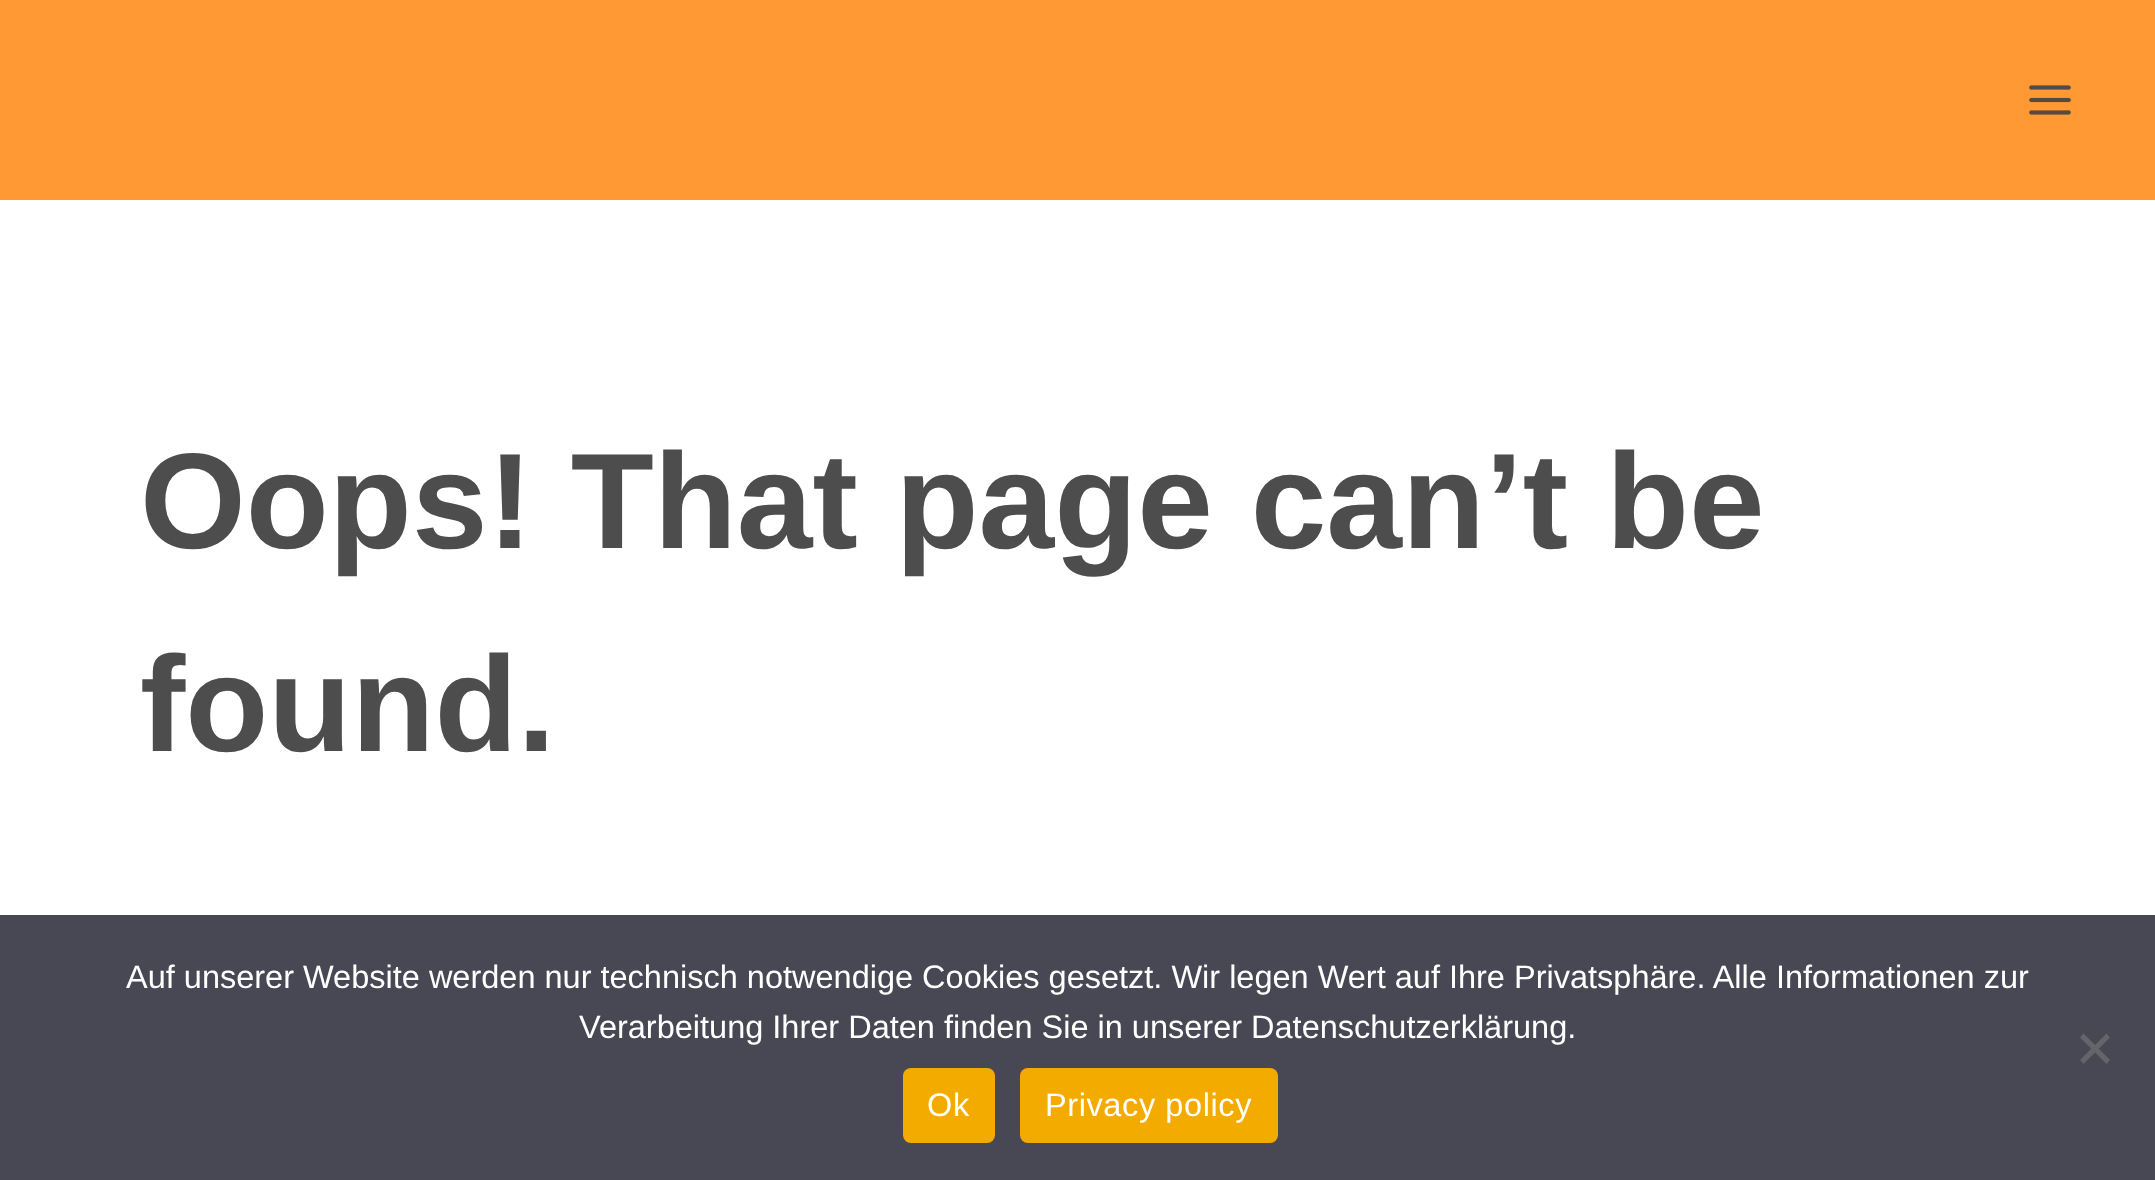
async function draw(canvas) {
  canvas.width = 2155;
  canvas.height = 1180;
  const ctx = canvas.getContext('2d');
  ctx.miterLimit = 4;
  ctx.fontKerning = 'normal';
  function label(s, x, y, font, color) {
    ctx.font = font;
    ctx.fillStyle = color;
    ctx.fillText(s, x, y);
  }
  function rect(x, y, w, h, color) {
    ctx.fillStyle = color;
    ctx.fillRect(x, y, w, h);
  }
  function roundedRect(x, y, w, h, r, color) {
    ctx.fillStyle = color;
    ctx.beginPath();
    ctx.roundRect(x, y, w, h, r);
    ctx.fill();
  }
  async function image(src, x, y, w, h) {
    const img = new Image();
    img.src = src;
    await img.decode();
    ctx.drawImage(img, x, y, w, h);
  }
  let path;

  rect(0, 0, 2155, 1180, '#fff');
  rect(0, 0, 2155, 200, '#f93');
  await image('assets/img1.png', 2029, 85, 42, 30);
  label('Oops! That page can’t be', 140, 548, 'bold 136px Liberation Sans', '#4d4d4d');
  label('found.', 140, 751, 'bold 136px Liberation Sans', '#4d4d4d');
  rect(0, 915, 2155, 265, '#484854');
  label('Auf unserer Website werden nur technisch notwendige Cookies gesetzt. Wir legen Wert auf Ihre Privatsphäre. Alle Informationen zur', 126, 988, '32.5px Liberation Sans', '#fff');
  label('Verarbeitung Ihrer Daten finden Sie in unserer Datenschutzerklärung.', 579, 1038, '32.5px Liberation Sans', '#fff');
  ctx.fillStyle = '#64646a';
  path = new Path2D('M2106.5 1033.5L2110 1037.5L2083.5 1064L2080 1060Z');
  ctx.fill(path);
  path = new Path2D('M2080 1037.5L2083.5 1033.5L2110 1060L2106.5 1064Z');
  ctx.fill(path);
  roundedRect(903, 1068, 92, 75, 8, '#f4ab00');
  ctx.letterSpacing = '0.6px';
  label('Ok', 927, 1116, '32.5px Liberation Sans', '#fff');
  roundedRect(1020, 1068, 258, 75, 8, '#f4ab00');
  label('Privacy policy', 1045, 1116, '32.5px Liberation Sans', '#fff');
}

draw(document.querySelector('canvas'));
